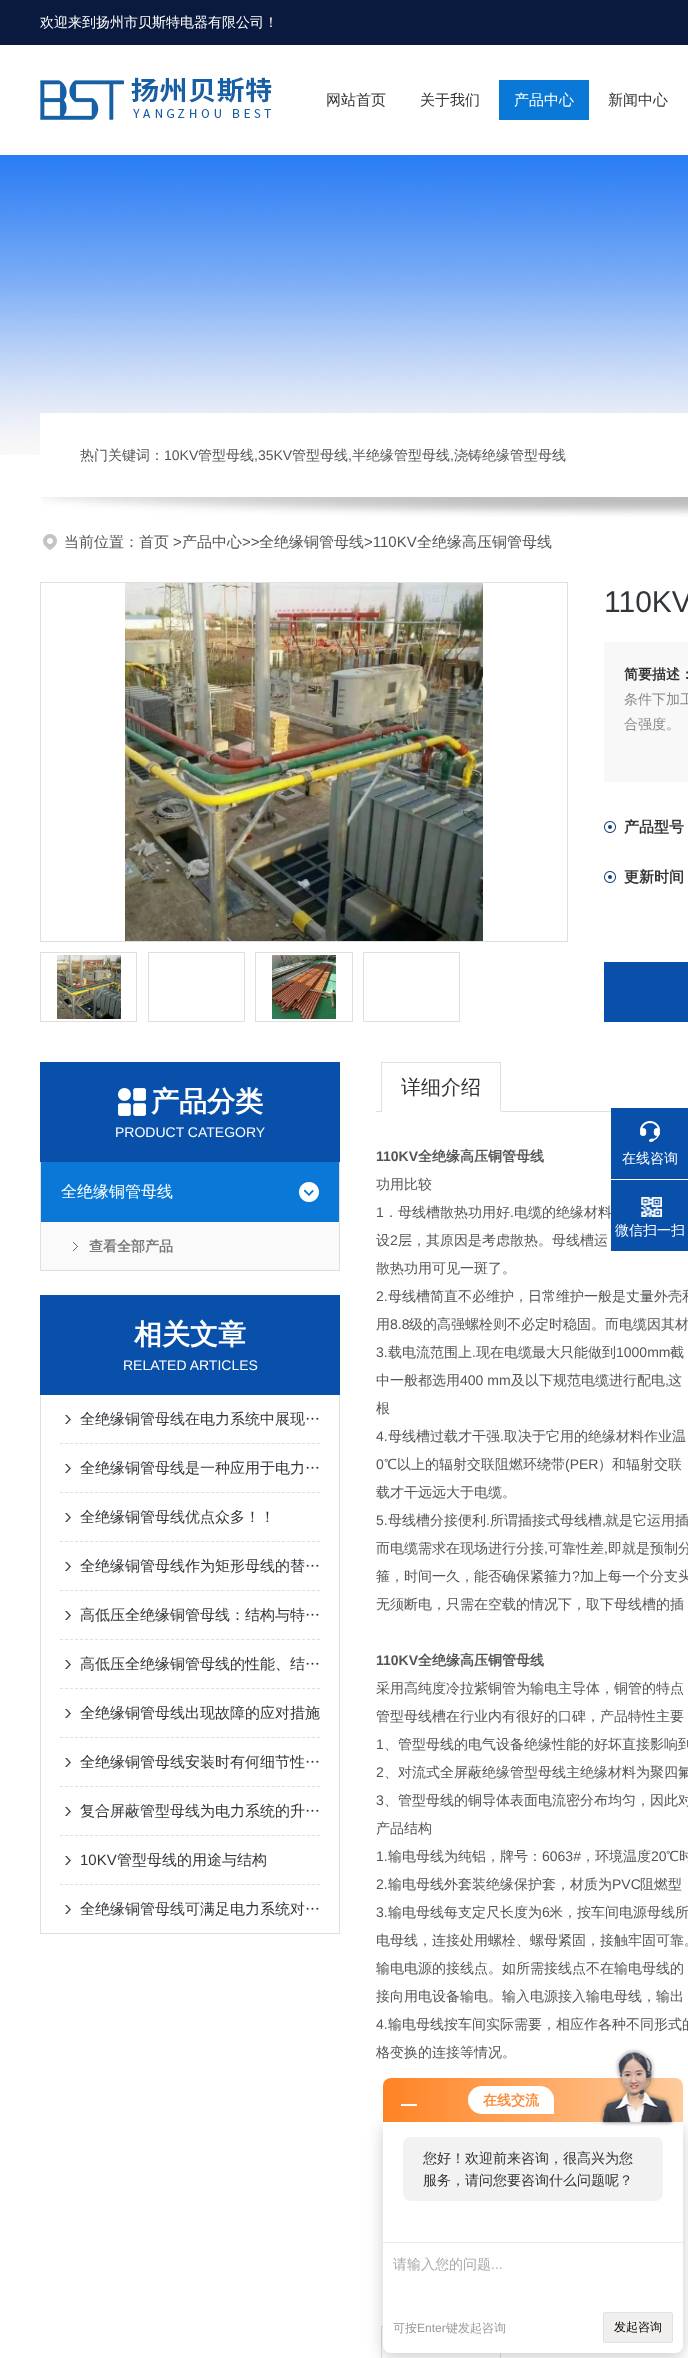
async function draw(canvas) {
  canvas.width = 688;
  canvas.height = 2358;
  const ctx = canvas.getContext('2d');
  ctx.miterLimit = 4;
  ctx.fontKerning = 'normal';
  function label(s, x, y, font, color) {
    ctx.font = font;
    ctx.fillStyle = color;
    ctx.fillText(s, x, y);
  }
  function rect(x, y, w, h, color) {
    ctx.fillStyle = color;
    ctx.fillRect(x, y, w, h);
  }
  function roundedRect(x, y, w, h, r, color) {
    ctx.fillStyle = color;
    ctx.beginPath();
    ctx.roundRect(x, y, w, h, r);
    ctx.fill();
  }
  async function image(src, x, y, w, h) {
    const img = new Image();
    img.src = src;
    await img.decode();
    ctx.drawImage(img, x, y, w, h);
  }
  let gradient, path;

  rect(0, 0, 688, 2358, '#fff');
  rect(0, 0, 688, 45, '#0a1a3e');
  label('欢迎来到扬州市贝斯特电器有限公司！', 40, 27, '500 14px WenQuanYi Zen Hei', '#fff');
  await image('assets/img1.png', 40, 73, 232, 49);
  label('网站首页', 326, 105, '500 15px WenQuanYi Zen Hei', '#333');
  label('关于我们', 420, 105, '500 15px WenQuanYi Zen Hei', '#333');
  rect(499, 80, 90, 40, '#0a78d7');
  label('产品中心', 514, 105, '500 15px WenQuanYi Zen Hei', '#fff');
  label('新闻中心', 608, 105, '500 15px WenQuanYi Zen Hei', '#333');
  await image('assets/img2.png', 0, 155, 688, 300);
  rect(40, 413, 648, 42, '#fff');
  await image('assets/img3.png', 41, 497, 647, 20);
  label('热门关键词：', 80, 460, '500 14px WenQuanYi Zen Hei', '#555');
  label('10KV', 164, 460, '14px Liberation Sans', '#555');
  label('管型母线', 198, 460, '500 14px WenQuanYi Zen Hei', '#555');
  label(',35KV', 254, 460, '14px Liberation Sans', '#555');
  label('管型母线', 292, 460, '500 14px WenQuanYi Zen Hei', '#555');
  label(',', 348, 460, '14px Liberation Sans', '#555');
  label('半绝缘管型母线', 352, 460, '500 14px WenQuanYi Zen Hei', '#555');
  label(',', 450, 460, '14px Liberation Sans', '#555');
  label('浇铸绝缘管型母线', 454, 460, '500 14px WenQuanYi Zen Hei', '#555');
  await image('assets/img4.png', 43, 534, 14, 16);
  label('当前位置：首页', 64, 547, '500 15px WenQuanYi Zen Hei', '#555');
  label('>', 173, 547, '15px Liberation Sans', '#555');
  label('产品中心', 182, 547, '500 15px WenQuanYi Zen Hei', '#555');
  label('>>', 242, 547, '15px Liberation Sans', '#555');
  label('全绝缘铜管母线', 259, 547, '500 15px WenQuanYi Zen Hei', '#555');
  label('>110KV', 364, 547, '15px Liberation Sans', '#555');
  label('全绝缘高压铜管母线', 417, 547, '500 15px WenQuanYi Zen Hei', '#555');
  ctx.strokeStyle = '#dfdfdf';
  ctx.strokeRect(40.5, 582.5, 527, 359);
  await image('assets/img5.png', 125, 583, 358, 358);
  ctx.strokeRect(40.5, 952.5, 96, 69);
  await image('assets/img6.png', 57, 955, 64, 64);
  ctx.strokeRect(148.5, 952.5, 96, 69);
  ctx.strokeRect(255.5, 952.5, 97, 69);
  await image('assets/img7.png', 272, 955, 64, 64);
  ctx.strokeRect(363.5, 952.5, 96, 69);
  label('110KV', 604, 612, '30px Liberation Sans', '#32353a');
  rect(604, 642, 84, 140, '#f8f8f8');
  label('简要描述：', 624, 679, 'bold 14px WenQuanYi Zen Hei', '#333');
  label('条件下加工', 624, 704, '500 14px WenQuanYi Zen Hei', '#888');
  label('合强度。', 624, 729, '500 14px WenQuanYi Zen Hei', '#888');
  await image('assets/img8.png', 604, 821, 12, 12);
  label('产品型号', 624, 832, 'bold 15px WenQuanYi Zen Hei', '#333');
  await image('assets/img8.png', 604, 871, 12, 12);
  label('更新时间', 624, 882, 'bold 15px WenQuanYi Zen Hei', '#333');
  rect(604, 962, 84, 60, '#0950aa');
  rect(40, 1062, 300, 100, '#0950aa');
  await image('assets/img9.png', 118, 1088, 28, 28);
  label('产品分类', 151, 1111, 'bold 28px WenQuanYi Zen Hei', '#fff');
  label('PRODUCT CATEGORY', 115, 1137, '14px Liberation Sans', '#fff');
  rect(339, 1162, 1, 109, '#dfdfdf');
  rect(40, 1162, 1, 109, '#dfdfdf');
  rect(41, 1270, 298, 1, '#dfdfdf');
  rect(41, 1162, 298, 60, '#0a78d7');
  label('全绝缘铜管母线', 61, 1197, '500 16px WenQuanYi Zen Hei', '#fff');
  await image('assets/img10.png', 299, 1182, 20, 20);
  rect(41, 1222, 298, 48, '#fafafa');
  await image('assets/img11.png', 73, 1242, 5, 9);
  label('查看全部产品', 89, 1251, 'bold 14px WenQuanYi Zen Hei', '#797979');
  rect(40, 1295, 300, 100, '#0950aa');
  label('相关文章', 134, 1344, 'bold 28px WenQuanYi Zen Hei', '#fff');
  label('RELATED ARTICLES', 123, 1370, '14px Liberation Sans', '#fff');
  rect(339, 1395, 1, 539, '#dfdfdf');
  rect(40, 1933, 300, 1, '#dfdfdf');
  rect(40, 1395, 1, 539, '#dfdfdf');
  path = new Path2D('M60 1443.5H320');
  ctx.setLineDash([3, 2.04]);
  ctx.stroke(path);
  await image('assets/img12.png', 65, 1415, 6, 9);
  label('全绝缘铜管母线在电力系统中展现…', 80, 1424, '500 15px WenQuanYi Zen Hei', '#32353a');
  path = new Path2D('M60 1492.5H320');
  ctx.stroke(path);
  await image('assets/img12.png', 65, 1464, 6, 9);
  label('全绝缘铜管母线是一种应用于电力…', 80, 1473, '500 15px WenQuanYi Zen Hei', '#32353a');
  path = new Path2D('M60 1541.5H320');
  ctx.stroke(path);
  await image('assets/img12.png', 65, 1513, 6, 9);
  label('全绝缘铜管母线优点众多！！', 80, 1522, '500 15px WenQuanYi Zen Hei', '#32353a');
  path = new Path2D('M60 1590.5H320');
  ctx.stroke(path);
  await image('assets/img12.png', 65, 1562, 6, 9);
  label('全绝缘铜管母线作为矩形母线的替…', 80, 1571, '500 15px WenQuanYi Zen Hei', '#32353a');
  path = new Path2D('M60 1639.5H320');
  ctx.stroke(path);
  await image('assets/img12.png', 65, 1611, 6, 9);
  label('高低压全绝缘铜管母线：结构与特…', 80, 1620, '500 15px WenQuanYi Zen Hei', '#32353a');
  path = new Path2D('M60 1688.5H320');
  ctx.stroke(path);
  await image('assets/img12.png', 65, 1660, 6, 9);
  label('高低压全绝缘铜管母线的性能、结…', 80, 1669, '500 15px WenQuanYi Zen Hei', '#32353a');
  path = new Path2D('M60 1737.5H320');
  ctx.stroke(path);
  await image('assets/img12.png', 65, 1709, 6, 9);
  label('全绝缘铜管母线出现故障的应对措施', 80, 1718, '500 15px WenQuanYi Zen Hei', '#32353a');
  path = new Path2D('M60 1786.5H320');
  ctx.stroke(path);
  await image('assets/img12.png', 65, 1758, 6, 9);
  label('全绝缘铜管母线安装时有何细节性…', 80, 1767, '500 15px WenQuanYi Zen Hei', '#32353a');
  path = new Path2D('M60 1835.5H320');
  ctx.stroke(path);
  await image('assets/img12.png', 65, 1807, 6, 9);
  label('复合屏蔽管型母线为电力系统的升…', 80, 1816, '500 15px WenQuanYi Zen Hei', '#32353a');
  path = new Path2D('M60 1884.5H320');
  ctx.stroke(path);
  await image('assets/img12.png', 65, 1856, 6, 9);
  label('10KV', 80, 1865, '15px Liberation Sans', '#32353a');
  label('管型母线的用途与结构', 117, 1865, '500 15px WenQuanYi Zen Hei', '#32353a');
  await image('assets/img12.png', 65, 1905, 6, 9);
  label('全绝缘铜管母线可满足电力系统对…', 80, 1914, '500 15px WenQuanYi Zen Hei', '#32353a');
  rect(376, 1111, 235, 1, '#dfdfdf');
  rect(381, 1062, 120, 1, '#dfdfdf');
  rect(500, 1062, 1, 50, '#dfdfdf');
  rect(381, 1111, 120, 1, '#fff');
  rect(381, 1062, 1, 50, '#dfdfdf');
  label('详细介绍', 401, 1094, '500 20px WenQuanYi Zen Hei', '#32353a');
  label('110KV', 376, 1161, 'bold 14px Liberation Sans', '#555');
  label('全绝缘高压铜管母线', 418, 1161, 'bold 14px WenQuanYi Zen Hei', '#555');
  label('功用比较', 376, 1189, '500 14px WenQuanYi Zen Hei', '#555');
  label('1', 376, 1217, '14px Liberation Sans', '#555');
  label('．母线槽散热功用好', 384, 1217, '500 14px WenQuanYi Zen Hei', '#555');
  label('.', 510, 1217, '14px Liberation Sans', '#555');
  label('电缆的绝缘材料', 514, 1217, '500 14px WenQuanYi Zen Hei', '#555');
  label('设', 376, 1245, '500 14px WenQuanYi Zen Hei', '#555');
  label('2', 390, 1245, '14px Liberation Sans', '#555');
  label('层，其原因是考虑散热。母线槽运', 398, 1245, '500 14px WenQuanYi Zen Hei', '#555');
  label('散热功用可见一斑了。', 376, 1273, '500 14px WenQuanYi Zen Hei', '#555');
  label('2.', 376, 1301, '14px Liberation Sans', '#555');
  label('母线槽简直不必维护，日常维护一般是丈量外壳和', 388, 1301, '500 14px WenQuanYi Zen Hei', '#555');
  label('用', 376, 1329, '500 14px WenQuanYi Zen Hei', '#555');
  label('8.8', 390, 1329, '14px Liberation Sans', '#555');
  label('级的高强螺栓则不必定时稳固。而电缆因其材', 409, 1329, '500 14px WenQuanYi Zen Hei', '#555');
  label('3.', 376, 1357, '14px Liberation Sans', '#555');
  label('载电流范围上', 388, 1357, '500 14px WenQuanYi Zen Hei', '#555');
  label('.', 472, 1357, '14px Liberation Sans', '#555');
  label('现在电缆最大只能做到', 476, 1357, '500 14px WenQuanYi Zen Hei', '#555');
  label('1000mm', 616, 1357, '14px Liberation Sans', '#555');
  label('截', 670, 1357, '500 14px WenQuanYi Zen Hei', '#555');
  label('中一般都选用', 376, 1385, '500 14px WenQuanYi Zen Hei', '#555');
  label('400 mm', 460, 1385, '14px Liberation Sans', '#555');
  label('及以下规范电缆进行配电', 511, 1385, '500 14px WenQuanYi Zen Hei', '#555');
  label(',', 665, 1385, '14px Liberation Sans', '#555');
  label('这', 668, 1385, '500 14px WenQuanYi Zen Hei', '#555');
  label('根', 376, 1413, '500 14px WenQuanYi Zen Hei', '#555');
  label('4.', 376, 1441, '14px Liberation Sans', '#555');
  label('母线槽过载才干强', 388, 1441, '500 14px WenQuanYi Zen Hei', '#555');
  label('.', 500, 1441, '14px Liberation Sans', '#555');
  label('取决于它用的绝缘材料作业温', 504, 1441, '500 14px WenQuanYi Zen Hei', '#555');
  label('0', 376, 1469, '14px Liberation Sans', '#555');
  label('℃以上的辐射交联阻燃环绕带', 384, 1469, '500 14px WenQuanYi Zen Hei', '#555');
  label('(PER', 565, 1469, '14px Liberation Sans', '#555');
  label('）和辐射交联', 598, 1469, '500 14px WenQuanYi Zen Hei', '#555');
  label('载才干远远大于电缆。', 376, 1497, '500 14px WenQuanYi Zen Hei', '#555');
  label('5.', 376, 1525, '14px Liberation Sans', '#555');
  label('母线槽分接便利', 388, 1525, '500 14px WenQuanYi Zen Hei', '#555');
  label('.', 486, 1525, '14px Liberation Sans', '#555');
  label('所谓插接式母线槽', 490, 1525, '500 14px WenQuanYi Zen Hei', '#555');
  label(',', 602, 1525, '14px Liberation Sans', '#555');
  label('就是它运用插', 605, 1525, '500 14px WenQuanYi Zen Hei', '#555');
  label('而电缆需求在现场进行分接', 376, 1553, '500 14px WenQuanYi Zen Hei', '#555');
  label(',', 544, 1553, '14px Liberation Sans', '#555');
  label('可靠性差', 548, 1553, '500 14px WenQuanYi Zen Hei', '#555');
  label(',', 604, 1553, '14px Liberation Sans', '#555');
  label('即就是预制分', 608, 1553, '500 14px WenQuanYi Zen Hei', '#555');
  label('箍，时间一久，能否确保紧箍力', 376, 1581, '500 14px WenQuanYi Zen Hei', '#555');
  label('?', 572, 1581, '14px Liberation Sans', '#555');
  label('加上每一个分支头', 580, 1581, '500 14px WenQuanYi Zen Hei', '#555');
  label('无须断电，只需在空载的情况下，取下母线槽的插', 376, 1609, '500 14px WenQuanYi Zen Hei', '#555');
  label('110KV', 376, 1665, 'bold 14px Liberation Sans', '#555');
  label('全绝缘高压铜管母线', 418, 1665, 'bold 14px WenQuanYi Zen Hei', '#555');
  label('采用高纯度冷拉紫铜管为输电主导体，铜管的特点', 376, 1693, '500 14px WenQuanYi Zen Hei', '#555');
  label('管型母线槽在行业内有很好的口碑，产品特性主要', 376, 1721, '500 14px WenQuanYi Zen Hei', '#555');
  label('1', 376, 1749, '14px Liberation Sans', '#555');
  label('、管型母线的电气设备绝缘性能的好坏直接影响到', 384, 1749, '500 14px WenQuanYi Zen Hei', '#555');
  label('2', 376, 1777, '14px Liberation Sans', '#555');
  label('、对流式全屏蔽绝缘管型母线主绝缘材料为聚四氟', 384, 1777, '500 14px WenQuanYi Zen Hei', '#555');
  label('3', 376, 1805, '14px Liberation Sans', '#555');
  label('、管型母线的铜导体表面电流密分布均匀，因此对', 384, 1805, '500 14px WenQuanYi Zen Hei', '#555');
  label('产品结构', 376, 1833, '500 14px WenQuanYi Zen Hei', '#555');
  label('1.', 376, 1861, '14px Liberation Sans', '#555');
  label('输电母线为纯铝，牌号：', 388, 1861, '500 14px WenQuanYi Zen Hei', '#555');
  label('6063#', 542, 1861, '14px Liberation Sans', '#555');
  label('，环境温度', 581, 1861, '500 14px WenQuanYi Zen Hei', '#555');
  label('20', 651, 1861, '14px Liberation Sans', '#555');
  label('℃时', 666, 1861, '500 14px WenQuanYi Zen Hei', '#555');
  label('2.', 376, 1889, '14px Liberation Sans', '#555');
  label('输电母线外套装绝缘保护套，材质为', 388, 1889, '500 14px WenQuanYi Zen Hei', '#555');
  label('PVC', 612, 1889, '14px Liberation Sans', '#555');
  label('阻燃型', 640, 1889, '500 14px WenQuanYi Zen Hei', '#555');
  label('3.', 376, 1917, '14px Liberation Sans', '#555');
  label('输电母线每支定尺长度为', 388, 1917, '500 14px WenQuanYi Zen Hei', '#555');
  label('6', 542, 1917, '14px Liberation Sans', '#555');
  label('米，按车间电源母线所', 549, 1917, '500 14px WenQuanYi Zen Hei', '#555');
  label('电母线，连接处用螺栓、螺母紧固，接触牢固可靠。', 376, 1945, '500 14px WenQuanYi Zen Hei', '#555');
  label('输电电源的接线点。如所需接线点不在输电母线的', 376, 1973, '500 14px WenQuanYi Zen Hei', '#555');
  label('接向用电设备输电。输入电源接入输电母线，输出', 376, 2001, '500 14px WenQuanYi Zen Hei', '#555');
  label('4.', 376, 2029, '14px Liberation Sans', '#555');
  label('输电母线按车间实际需要，相应作各种不同形式的', 388, 2029, '500 14px WenQuanYi Zen Hei', '#555');
  label('格变换的连接等情况。', 376, 2057, '500 14px WenQuanYi Zen Hei', '#555');
  rect(381, 2326, 2, 1, '#dfdfdf');
  rect(500, 2353, 1, 5, '#dfdfdf');
  rect(381, 2326, 1, 32, '#dfdfdf');
  rect(611, 1108, 77, 71, '#0950aa');
  await image('assets/img13.png', 640, 1121, 20, 21);
  label('在线咨询', 622, 1163, '500 14px WenQuanYi Zen Hei', '#fff');
  rect(611, 1180, 77, 71, '#0950aa');
  await image('assets/img14.png', 641, 1197, 21, 20);
  label('微信扫一扫', 615, 1235, '500 14px WenQuanYi Zen Hei', '#fff');
  ctx.fillStyle = '#00000033';
  ctx.filter = 'blur(8px)';
  ctx.beginPath();
  ctx.roundRect(383, 2126, 300, 231, 8);
  ctx.fill();
  ctx.filter = 'none';
  gradient = ctx.createLinearGradient(383, 2100, 683, 2100);
  gradient.addColorStop(0, '#ff8324');
  gradient.addColorStop(1, '#fecb9c');
  ctx.fillStyle = gradient;
  ctx.beginPath();
  ctx.roundRect(383, 2078, 300, 44, [8, 8, 0, 0]);
  ctx.fill();
  rect(401, 2104, 16, 2, '#fff');
  ctx.beginPath();
  ctx.roundRect(468, 2086, 86, 28, [14, 14, 0, 14]);
  ctx.fill();
  label('在线交流', 483, 2105, 'bold 14px WenQuanYi Zen Hei', '#fb8b36');
  ctx.fillStyle = '#fff';
  ctx.beginPath();
  ctx.roundRect(383, 2122, 300, 231, [0, 0, 8, 8]);
  ctx.fill();
  await image('assets/img15.png', 599, 2048, 76, 78);
  roundedRect(403, 2137, 260, 64, 8, '#f2f2f2');
  label('您好！欢迎前来咨询，很高兴为您', 423, 2163, '500 14px WenQuanYi Zen Hei', '#333');
  label('服务，请问您要咨询什么问题呢？', 423, 2185, '500 14px WenQuanYi Zen Hei', '#333');
  rect(383, 2242, 300, 1, '#eaeaea');
  label('请输入您的问题', 393, 2269, '500 14px WenQuanYi Zen Hei', '#aaa');
  label('...', 491, 2269, '14px Liberation Sans', '#aaa');
  label('可按', 393, 2332, '500 12px WenQuanYi Zen Hei', '#999');
  label('Enter', 417, 2332, '12px Liberation Sans', '#999');
  label('键发起咨询', 446, 2332, '500 12px WenQuanYi Zen Hei', '#999');
  ctx.fillStyle = '#f0efed';
  ctx.beginPath();
  ctx.roundRect(603.5, 2312.5, 69, 30, 1.5);
  ctx.fill();
  ctx.strokeStyle = '#e2e2e2';
  ctx.setLineDash([]);
  ctx.stroke();
  label('发起咨询', 614, 2331, '500 12px WenQuanYi Zen Hei', '#000');
}

draw(document.querySelector('canvas'));
